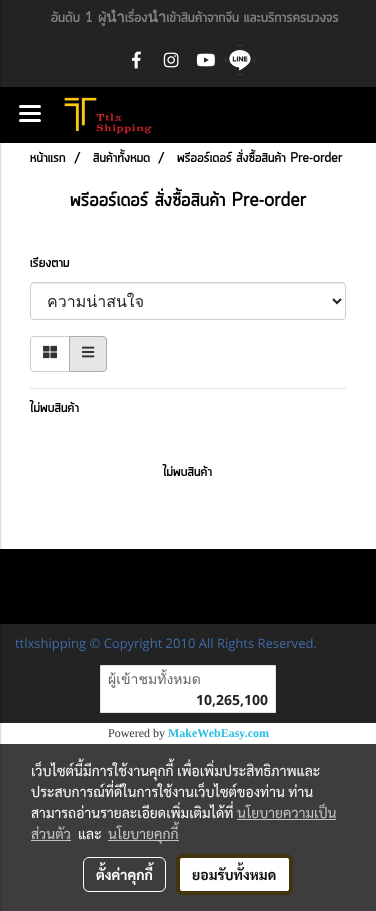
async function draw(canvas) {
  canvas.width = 376;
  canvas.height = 911;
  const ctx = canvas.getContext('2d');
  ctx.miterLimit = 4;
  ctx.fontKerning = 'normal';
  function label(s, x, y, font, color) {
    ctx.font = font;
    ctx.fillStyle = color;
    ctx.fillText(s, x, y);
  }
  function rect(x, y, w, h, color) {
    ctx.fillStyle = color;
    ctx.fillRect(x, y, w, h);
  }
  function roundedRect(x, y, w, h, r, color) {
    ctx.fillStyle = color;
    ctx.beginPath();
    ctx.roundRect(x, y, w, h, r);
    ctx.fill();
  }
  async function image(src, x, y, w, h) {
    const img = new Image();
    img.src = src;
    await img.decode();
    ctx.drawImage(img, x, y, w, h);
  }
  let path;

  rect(0, 0, 376, 911, '#fff');
  rect(0, 87, 376, 56, '#000');
  rect(0, 0, 376, 87, '#232323');
  rect(0, 549, 376, 75, '#000');
  rect(0, 624, 376, 99, '#232323');
  ctx.fillStyle = '#0000003d';
  ctx.filter = 'blur(1px)';
  ctx.beginPath();
  ctx.rect(-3, 1, 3, 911);
  ctx.fill();
  ctx.filter = 'none';
  ctx.fillStyle = '#0000001f';
  ctx.filter = 'blur(1.5px)';
  ctx.beginPath();
  ctx.rect(-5, 1, 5, 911);
  ctx.fill();
  ctx.filter = 'none';
  roundedRect(19, 112, 22, 3, 1.5, '#fff');
  roundedRect(19, 105, 22, 3, 1.5, '#fff');
  roundedRect(19, 119, 22, 3, 1.5, '#fff');
  await image('assets/img1.png', 64, 97, 88, 38);
  label('อันดับ 1 ผู้นำเรื่องนำเข้าสินค้าจากจีน และบริการครบวงจร', 51, 22, 'bold 15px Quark', '#808080');
  await image('assets/img2.png', 132, 51, 9, 18);
  await image('assets/img3.png', 163, 52, 16, 16);
  await image('assets/img4.png', 196, 53, 19, 14);
  await image('assets/img5.png', 225, 45, 30, 30);
  label('หน้าแรก', 30, 162, 'bold 14px Quark', '#000');
  label('/', 74, 162, 'bold 14px Quark', '#000');
  label('สินค้าทั้งหมด', 93, 162, 'bold 14px Quark', '#000');
  label('/', 158, 162, 'bold 14px Quark', '#000');
  label('พรีออร์เดอร์ สั่งซื้อสินค้า Pre-order', 177, 162, 'bold 14px Quark', '#000');
  label('พรีออร์เดอร์ สั่งซื้อสินค้า Pre-order', 70, 206, 'bold 20px Quark', '#000');
  label('เรียงตาม', 30, 267, 'bold 14px Quark', '#000');
  ctx.fillStyle = '#ececec';
  path = new Path2D('M34 284H342C344 284 345 285 345 287L344 284L343 283H34C32 283 31 285 31 287C31 285 32 284 34 284Z');
  ctx.fill(path);
  ctx.beginPath();
  ctx.roundRect(30.5, 282.5, 315, 37, 3.5);
  ctx.strokeStyle = '#cdced2';
  ctx.stroke();
  path = new Path2D('M333 299L337 303L341 299');
  ctx.strokeStyle = '#212121';
  ctx.lineWidth = 2;
  ctx.stroke(path);
  label('ความน่าสนใจ', 47, 307, '16px Loma', '#242424');
  ctx.beginPath();
  ctx.roundRect(30.5, 336.5, 39, 35, [3.5, 0, 0, 3.5]);
  ctx.strokeStyle = '#ccc';
  ctx.lineWidth = 1;
  ctx.stroke();
  await image('assets/img6.png', 43, 345, 14, 14);
  ctx.fillStyle = '#e6e6e6';
  ctx.beginPath();
  ctx.roundRect(69.5, 336.5, 37, 35, [0, 3.5, 3.5, 0]);
  ctx.fill();
  ctx.strokeStyle = '#adadad';
  ctx.stroke();
  await image('assets/img7.png', 82, 346, 13, 12);
  rect(30, 388, 316, 1, '#dee2e6');
  label('ไม่พบสินค้า', 30, 412, 'bold 14px Quark', '#000');
  label('ไม่พบสินค้า', 163, 476, 'bold 14px Quark', '#000');
  label('ttlxshipping © Copyright 2010 All Rights Reserved.', 15, 648, '13px Open Sans', '#3e6ba7');
  ctx.fillStyle = '#fff';
  ctx.beginPath();
  ctx.rect(100.5, 665.5, 175, 47);
  ctx.fill();
  ctx.strokeStyle = '#e5e5e5';
  ctx.stroke();
  label('ผู้เข้าชมทั้งหมด', 108, 684, '14px Loma', '#636363');
  label('10,265,100', 196, 705, 'bold 14px Open Sans', '#242424');
  label('Powered by', 108, 737, '12px Liberation Serif', '#353535');
  label('MakeWebEasy.com', 168, 737, 'bold 12px Liberation Serif', '#28bee3');
  rect(0, 744, 376, 167, '#000000c2');
  label('เว็บไซต์นี้มีการใช้งานคุกกี้ เพื่อเพิ่มประสิทธิภาพและ', 31, 776, '14px Sarabun', '#fff');
  label('ประสบการณ์ที่ดีในการใช้งานเว็บไซต์ของท่าน ท่าน', 31, 797, '14px Sarabun', '#fff');
  label('สามารถอ่านรายละเอียดเพิ่มเติมได้ที่', 31, 818, '14px Sarabun', '#fff');
  label('นโยบายความเป็น', 237, 818, '14px Sarabun', '#c5c5c5');
  rect(237, 819, 99, 1, '#c5c5c5');
  label('ส่วนตัว', 31, 839, '14px Sarabun', '#c5c5c5');
  rect(31, 840, 40, 1, '#c5c5c5');
  label('และ', 78, 839, '14px Sarabun', '#fff');
  rect(108, 840, 71, 1, '#c5c5c5');
  label('นโยบายคุกกี้', 108, 839, '14px Sarabun', '#c5c5c5');
  ctx.beginPath();
  ctx.roundRect(83.5, 857.5, 82, 34, 5.5);
  ctx.strokeStyle = '#fff';
  ctx.stroke();
  label('ตั้งค่าคุกกี้', 96, 880, 'bold 14px Sarabun', '#fff');
  ctx.beginPath();
  ctx.roundRect(178, 856, 113, 37, 4);
  ctx.fill();
  ctx.strokeStyle = '#40350d';
  ctx.lineWidth = 4;
  ctx.stroke();
  label('ยอมรับทั้งหมด', 192, 880, 'bold 14px Sarabun', '#0d0d0d');
}

draw(document.querySelector('canvas'));
